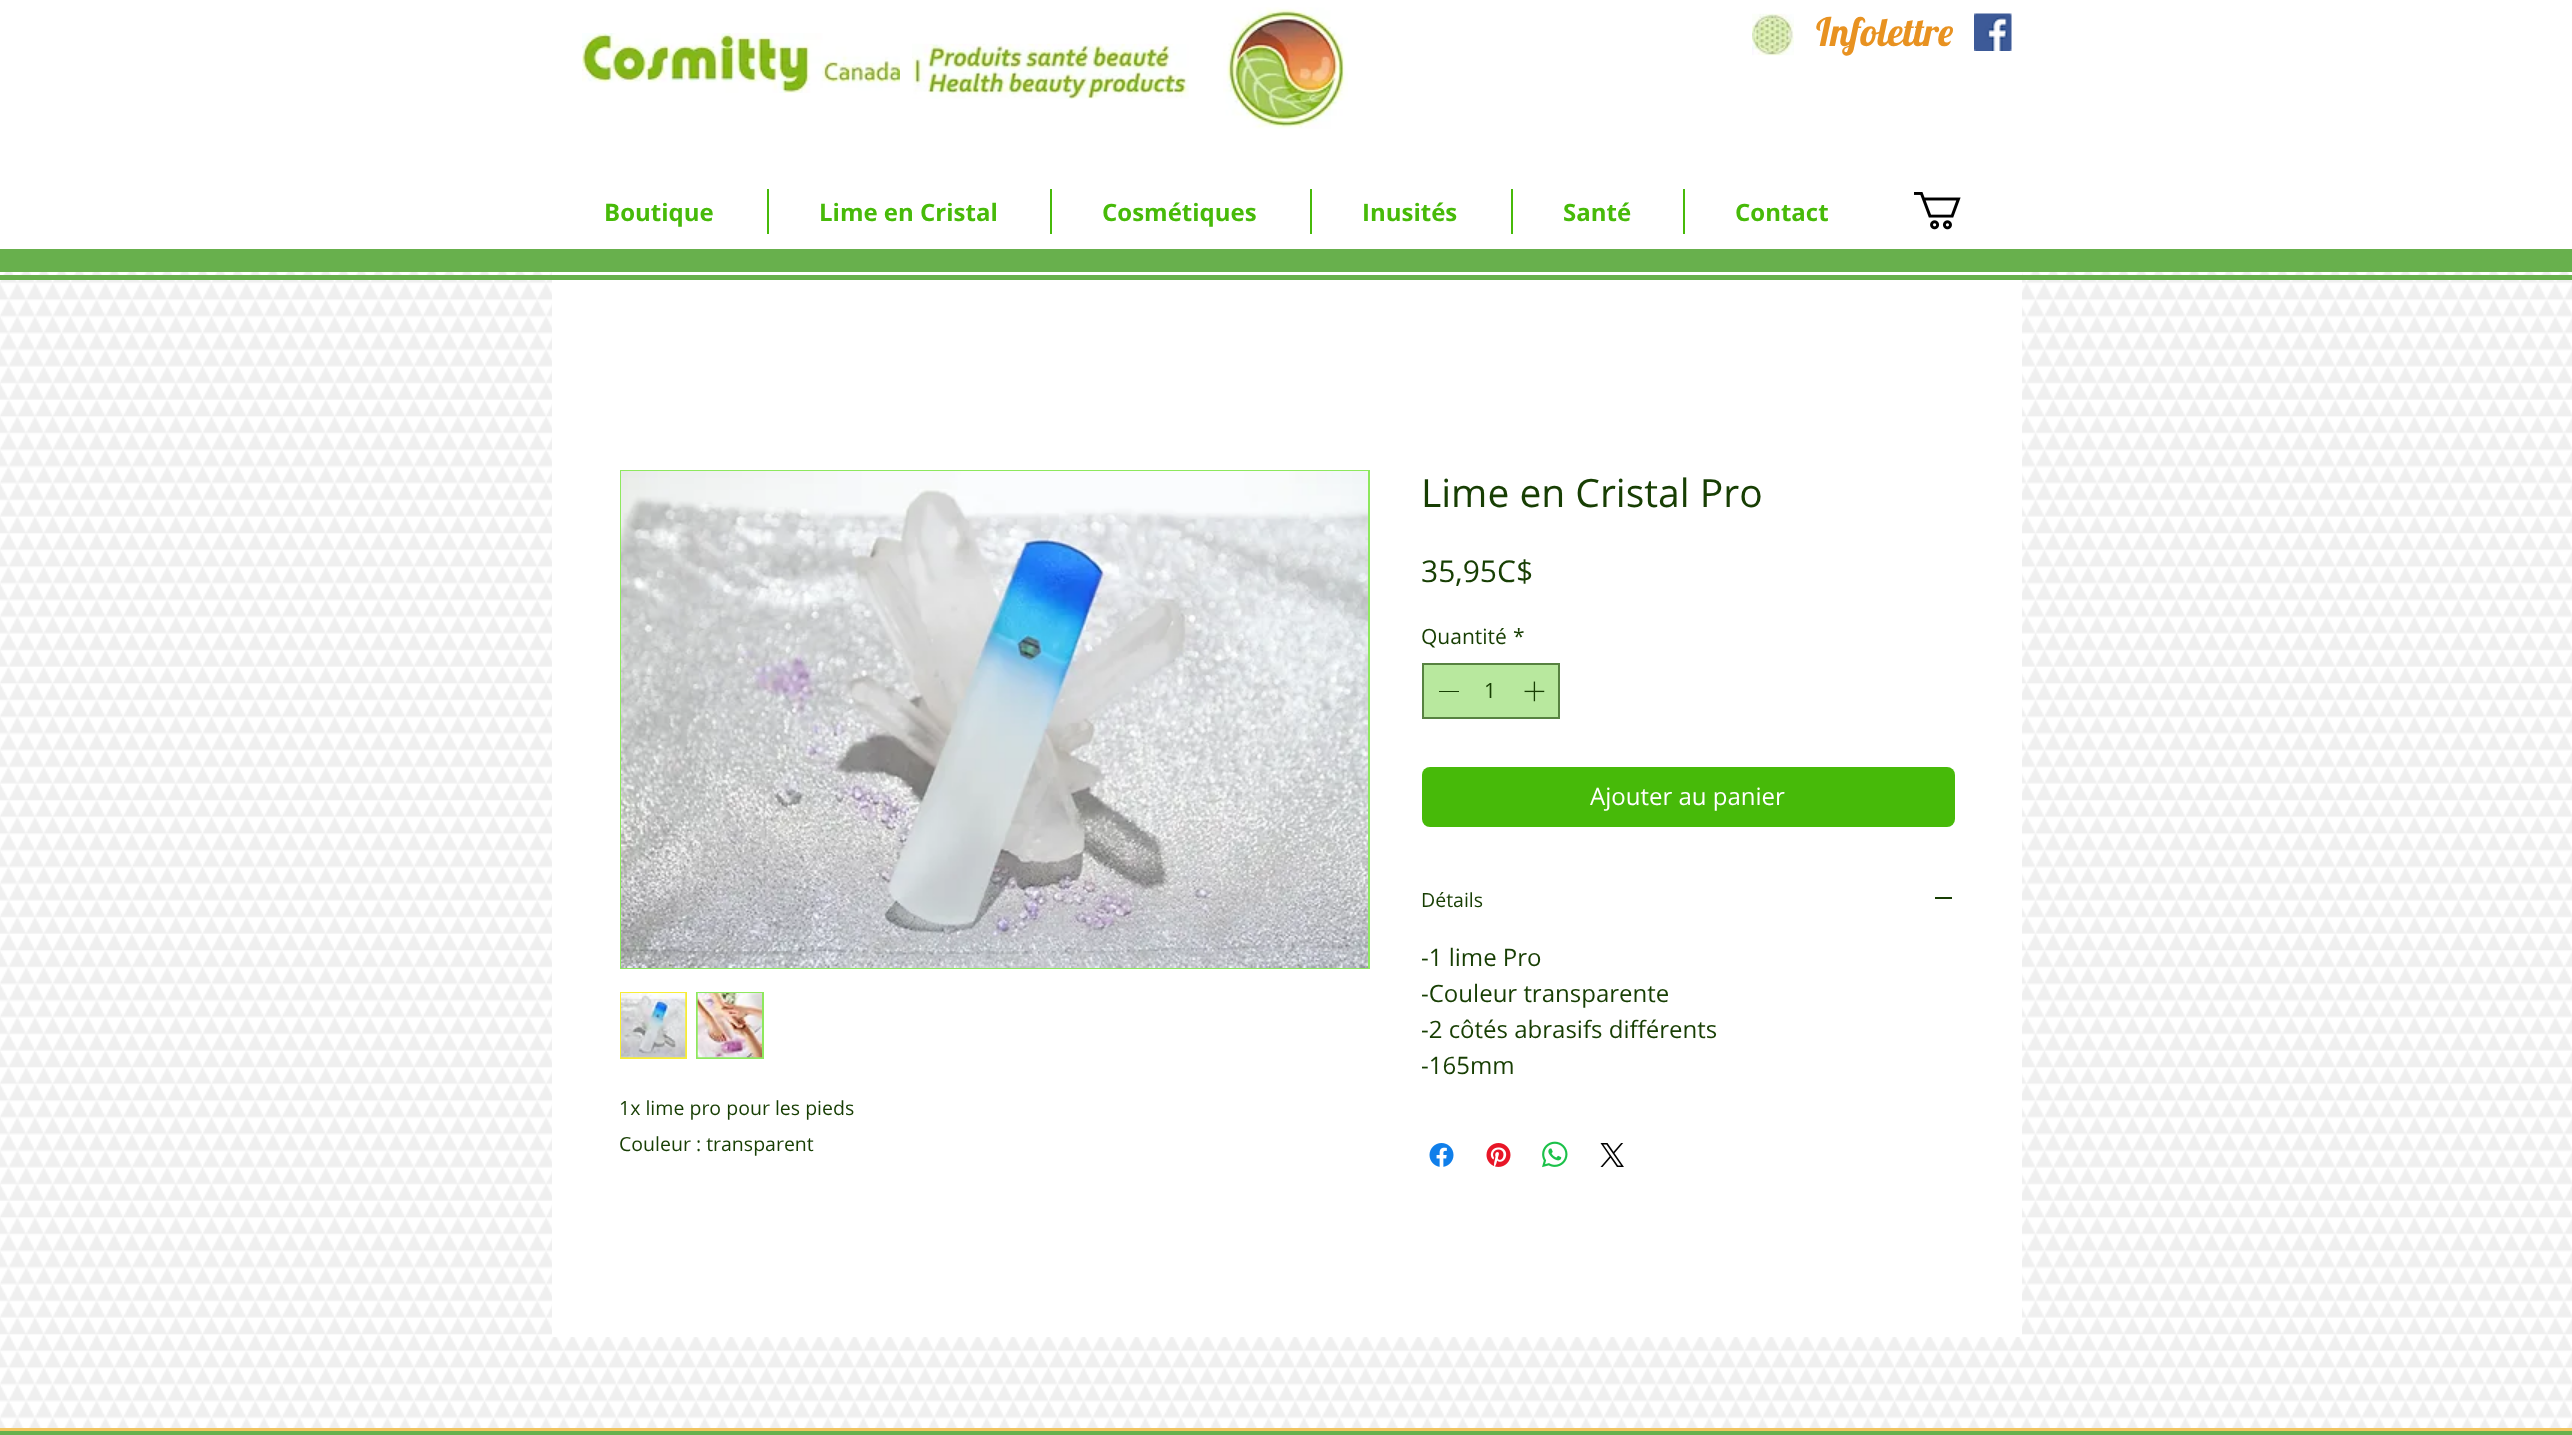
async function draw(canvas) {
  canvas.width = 2572;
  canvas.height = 1435;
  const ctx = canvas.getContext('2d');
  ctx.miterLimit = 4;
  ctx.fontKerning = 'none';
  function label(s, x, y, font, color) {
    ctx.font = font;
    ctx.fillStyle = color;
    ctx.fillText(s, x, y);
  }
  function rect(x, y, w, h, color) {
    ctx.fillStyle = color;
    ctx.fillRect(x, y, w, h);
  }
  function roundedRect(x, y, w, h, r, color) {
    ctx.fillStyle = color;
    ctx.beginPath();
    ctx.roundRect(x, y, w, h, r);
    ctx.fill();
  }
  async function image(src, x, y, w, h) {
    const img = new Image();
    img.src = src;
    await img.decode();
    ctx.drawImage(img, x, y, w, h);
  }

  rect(0, 0, 2572, 1435, '#fff');
  await image('assets/img1.png', 582, 33, 318, 60);
  await image('assets/img2.png', 912, 43, 277, 56);
  await image('assets/img3.png', 1223, 7, 125, 122);
  await image('assets/img4.png', 1752, 13, 42, 43);
  label('Infolettre', 1816, 46, '39px Lobster', '#e89221');
  await image('assets/img5.png', 1974, 13, 38, 38);
  label('Boutique', 604, 221, 'bold 24px Open Sans', '#47ba09');
  rect(767, 189, 2, 45, '#47ba09');
  label('Lime en Cristal', 819, 221, 'bold 24px Open Sans', '#47ba09');
  rect(1050, 189, 2, 45, '#47ba09');
  label('Cosmétiques', 1102, 221, 'bold 24px Open Sans', '#47ba09');
  rect(1310, 189, 2, 45, '#47ba09');
  label('Inusités', 1362, 221, 'bold 24px Open Sans', '#47ba09');
  rect(1511, 189, 2, 45, '#47ba09');
  label('Santé', 1563, 221, 'bold 24px Open Sans', '#47ba09');
  rect(1683, 189, 2, 45, '#47ba09');
  label('Contact', 1735, 221, 'bold 24px Open Sans', '#47ba09');
  await image('assets/img6.png', 1914, 192, 47, 38);
  rect(0, 249, 2572, 23, '#68b04d');
  await image('assets/img15.png', 0, 272, 2572, 1156);
  rect(552, 272, 1470, 1065, '#fff');
  rect(0, 275, 2572, 5, '#68b04d');
  label('Lime en Cristal Pro', 1421, 507, '39px Open Sans', '#173e03');
  label('35,95C$', 1421, 582, '30px Open Sans', '#173e03');
  label('Quantité', 1421, 644, '21px Open Sans', '#173e03');
  label('*', 1513, 644, '21px Open Sans', '#173e03');
  ctx.fillStyle = '#b8e89e';
  ctx.beginPath();
  ctx.rect(1423, 664, 136, 54);
  ctx.fill();
  ctx.strokeStyle = '#578241';
  ctx.lineWidth = 2;
  ctx.stroke();
  rect(1439, 691, 20, 1, '#173e03');
  label('1', 1484, 698, '21px Open Sans', '#173e03');
  await image('assets/img7.png', 1524, 681, 21, 21);
  roundedRect(1422, 767, 533, 60, 8, '#47ba09');
  label('Ajouter au panier', 1590, 805, '24px Open Sans', '#fff');
  label('Détails', 1421, 907, '19.5px Open Sans', '#173e03');
  rect(1935, 897, 17, 2, '#173e03');
  label('-1 lime Pro', 1421, 966, '24px Open Sans', '#173e03');
  label('-Couleur transparente', 1421, 1002, '24px Open Sans', '#173e03');
  label('-2 côtés abrasifs différents', 1421, 1038, '24px Open Sans', '#173e03');
  label('-165mm', 1421, 1074, '24px Open Sans', '#173e03');
  await image('assets/img8.png', 1429, 1143, 25, 24);
  await image('assets/img9.png', 1486, 1143, 25, 24);
  await image('assets/img10.png', 1542, 1141, 26, 27);
  await image('assets/img11.png', 1600, 1143, 24, 24);
  ctx.strokeStyle = '#8ee85e';
  ctx.strokeRect(621, 471, 748, 497);
  await image('assets/img12.png', 621, 471, 747, 497);
  ctx.strokeStyle = '#f7ed33';
  ctx.strokeRect(621, 993, 65, 65);
  await image('assets/img13.png', 621, 993, 65, 65);
  rect(696, 992, 68, 67, '#8ee85e');
  await image('assets/img14.png', 697, 993, 65, 65);
  label('1x lime pro pour les pieds', 619, 1115, '19.5px Open Sans', '#173e03');
  label('Couleur : transparent', 619, 1151, '19.5px Open Sans', '#173e03');
  rect(0, 1428, 2572, 3, '#f1c560');
  rect(0, 1431, 2572, 4, '#68b04d');
}

draw(document.querySelector('canvas'));
